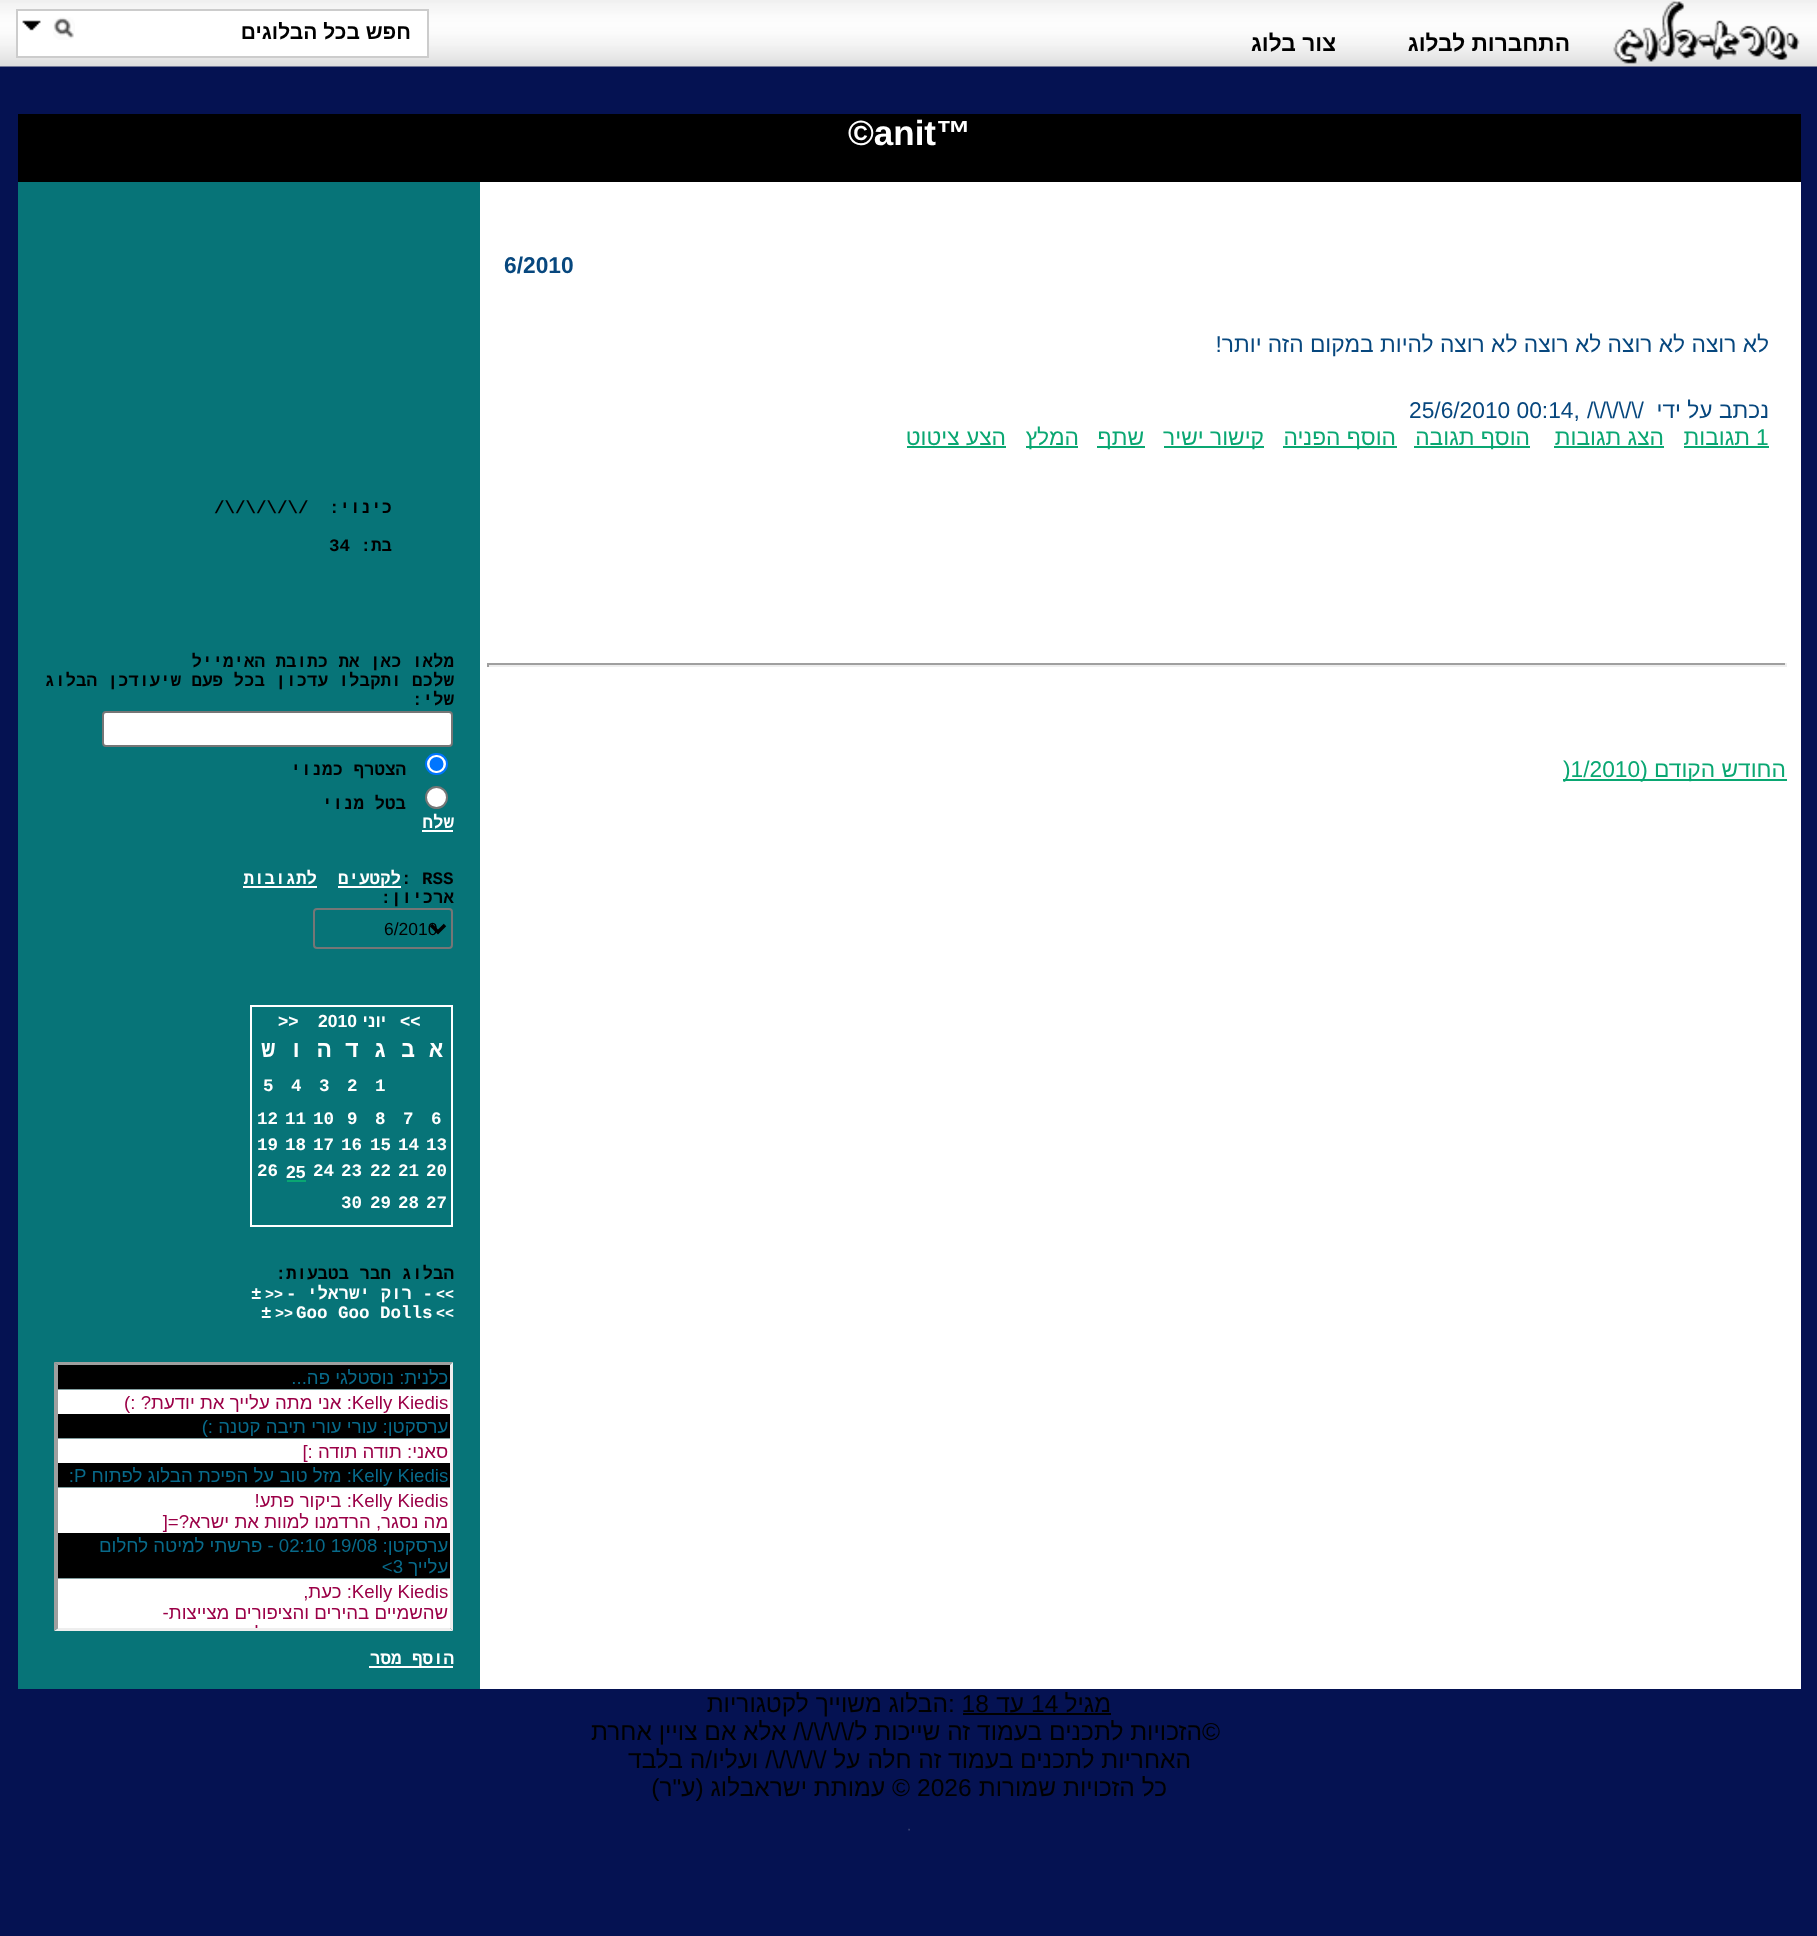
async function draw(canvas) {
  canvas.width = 1817;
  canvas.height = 1936;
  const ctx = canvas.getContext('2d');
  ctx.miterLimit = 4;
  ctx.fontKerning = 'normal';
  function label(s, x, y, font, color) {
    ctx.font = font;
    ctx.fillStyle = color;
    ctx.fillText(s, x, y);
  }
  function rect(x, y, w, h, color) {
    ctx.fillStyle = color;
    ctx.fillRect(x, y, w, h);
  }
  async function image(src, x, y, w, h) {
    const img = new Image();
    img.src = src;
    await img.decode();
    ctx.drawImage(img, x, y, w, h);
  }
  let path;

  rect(0, 0, 1817, 1936, '#051252');
  await image('assets/img1.png', 0, 0, 1817, 67);
  await image('assets/img2.png', 1613, 0, 187, 64);
  ctx.direction = 'rtl';
  label('התחברות לבלוג', 1570, 51, 'bold 22.75px Liberation Sans', '#000');
  label('צור בלוג', 1336, 51, 'bold 22.75px Liberation Sans', '#000');
  ctx.fillStyle = '#fff';
  ctx.beginPath();
  ctx.rect(17, 10, 411, 47);
  ctx.fill();
  ctx.strokeStyle = '#ccc';
  ctx.lineWidth = 2;
  ctx.stroke();
  label('חפש בכל הבלוגים', 411, 39, 'bold 21px Liberation Sans', '#000');
  await image('assets/img3.png', 53, 17, 22, 23);
  await image('assets/img4.png', 22, 20, 19, 11);
  rect(18, 114, 1783, 68, '#000');
  ctx.direction = 'ltr';
  label('©anit™', 848, 145, 'bold 35px Liberation Sans', '#fff');
  rect(480, 182, 1321, 1507, '#fff');
  label('6/2010', 504, 273, 'bold 22.75px Liberation Sans', '#07477e');
  ctx.direction = 'rtl';
  label('לא רוצה לא רוצה לא רוצה לא רוצה להיות במקום הזה יותר!', 1769, 352, '22.75px Liberation Sans', '#07477e');
  label('נכתב על ידי', 1769, 418, '22.75px Liberation Sans', '#07477e');
  ctx.direction = 'ltr';
  label('/\\/\\/\\/\\/', 1587, 418, '22.75px Liberation Sans', '#07477e');
  label('25/6/2010 00:14,', 1409, 418, '22.75px Liberation Sans', '#07477e');
  label('1', 1756, 445, '22.75px Liberation Sans', '#0aa772');
  ctx.direction = 'rtl';
  label('תגובות', 1750, 445, '22.75px Liberation Sans', '#0aa772');
  rect(1684, 446, 85, 2, '#0aa772');
  label('הצג תגובות', 1664, 445, '22.75px Liberation Sans', '#0aa772');
  rect(1554, 446, 110, 2, '#0aa772');
  rect(1414, 446, 116, 2, '#0aa772');
  label('הוסף תגובה', 1530, 445, '22.75px Liberation Sans', '#0aa772');
  rect(1283, 446, 114, 2, '#0aa772');
  label('הוסף הפניה', 1396, 445, '22.75px Liberation Sans', '#0aa772');
  rect(1164, 446, 100, 2, '#0aa772');
  label('קישור ישיר', 1264, 445, '22.75px Liberation Sans', '#0aa772');
  rect(1097, 446, 48, 2, '#0aa772');
  label('שתף', 1144, 445, '22.75px Liberation Sans', '#0aa772');
  rect(1026, 446, 52, 2, '#0aa772');
  label('המלץ', 1079, 445, '22.75px Liberation Sans', '#0aa772');
  label('הצע ציטוט', 1006, 445, '22.75px Liberation Sans', '#0aa772');
  rect(907, 446, 99, 2, '#0aa772');
  rect(487, 663, 1300, 2, '#9f9f9f');
  rect(1785, 663, 2, 4, '#eee');
  rect(487, 665, 1300, 2, '#eee');
  rect(487, 663, 2, 4, '#9f9f9f');
  rect(1563, 779, 224, 2, '#0aa772');
  label('החודש הקודם (', 1786, 777, '22.75px Liberation Sans', '#0aa772');
  ctx.direction = 'ltr';
  label(')1/2010', 1563, 777, '22.75px Liberation Sans', '#0aa772');
  rect(18, 182, 462, 1507, '#077478');
  ctx.direction = 'rtl';
  label('כינוי:', 392, 513, 'bold 17.5px Liberation Mono', '#000');
  ctx.direction = 'ltr';
  label('/\\/\\/\\/\\/', 214, 513, 'bold 17.5px Liberation Mono', '#000');
  ctx.direction = 'rtl';
  label('בת:', 392, 551, 'bold 17.5px Liberation Mono', '#000');
  ctx.direction = 'ltr';
  label('34', 329, 551, 'bold 17.5px Liberation Mono', '#000');
  ctx.direction = 'rtl';
  label('מלאו כאן את כתובת האימייל', 454, 667, 'bold 17.5px Liberation Mono', '#000');
  label('שלכם ותקבלו עדכון בכל פעם שיעודכן הבלוג', 454, 686, 'bold 17.5px Liberation Mono', '#000');
  label('שלי:', 454, 705, 'bold 17.5px Liberation Mono', '#000');
  ctx.fillStyle = '#fff';
  ctx.beginPath();
  ctx.roundRect(103, 712, 349, 34, 3);
  ctx.fill();
  ctx.strokeStyle = '#767676';
  ctx.stroke();
  ctx.beginPath();
  ctx.roundRect(426, 754, 21, 20, 10);
  ctx.fill();
  ctx.strokeStyle = '#0075ff';
  ctx.stroke();
  ctx.fillStyle = '#0075ff';
  ctx.beginPath();
  ctx.arc(436.5, 764, 7, 0, 2 * Math.PI);
  ctx.fill();
  label('הצטרף כמנוי', 406, 775, 'bold 17.5px Liberation Mono', '#000');
  ctx.fillStyle = '#fff';
  ctx.beginPath();
  ctx.arc(436.5, 797.5, 10.5, 0, 2 * Math.PI);
  ctx.fill();
  ctx.strokeStyle = '#767676';
  ctx.stroke();
  label('בטל מנוי', 406, 809, 'bold 17.5px Liberation Mono', '#000');
  label('שלח', 454, 828, 'bold 17.5px Liberation Mono', '#fff');
  rect(422, 830, 31, 2, '#fff');
  ctx.direction = 'ltr';
  label(': RSS', 401, 884, 'bold 17.5px Liberation Mono', '#000');
  rect(338, 886, 63, 2, '#fff');
  ctx.direction = 'rtl';
  label('לקטעים', 401, 884, 'bold 17.5px Liberation Mono', '#fff');
  label('לתגובות', 317, 884, 'bold 17.5px Liberation Mono', '#fff');
  rect(243, 886, 74, 2, '#fff');
  label('ארכיון:', 454, 903, 'bold 17.5px Liberation Mono', '#000');
  ctx.beginPath();
  ctx.roundRect(314, 909, 138, 39, 3);
  ctx.stroke();
  path = new Path2D('M431 925L438 932L445 925');
  ctx.strokeStyle = '#000';
  ctx.lineWidth = 3.5;
  ctx.stroke(path);
  ctx.direction = 'ltr';
  label('6/2010', 384, 935, '17.5px Liberation Sans', '#000');
  ctx.strokeStyle = '#fff';
  ctx.lineWidth = 2;
  ctx.strokeRect(251, 1006, 201, 220);
  label('<<', 400, 1027, 'bold 17.5px Liberation Sans', '#fff');
  ctx.direction = 'rtl';
  label('יוני', 386, 1027, 'bold 17.5px Liberation Sans', '#fff');
  ctx.direction = 'ltr';
  label('2010', 318, 1027, 'bold 17.5px Liberation Sans', '#fff');
  label('>>', 278, 1027, 'bold 17.5px Liberation Sans', '#fff');
  ctx.direction = 'rtl';
  label('א', 443, 1057, 'bold 23px Liberation Mono', '#fff');
  label('ב', 415, 1057, 'bold 23px Liberation Mono', '#fff');
  label('ג', 387, 1057, 'bold 23px Liberation Mono', '#fff');
  label('ד', 359, 1057, 'bold 23px Liberation Mono', '#fff');
  label('ה', 331, 1057, 'bold 23px Liberation Mono', '#fff');
  label('ו', 303, 1057, 'bold 23px Liberation Mono', '#fff');
  label('ש', 275, 1057, 'bold 23px Liberation Mono', '#fff');
  ctx.direction = 'ltr';
  label('1', 375, 1091, 'bold 17.5px Liberation Mono', '#fff');
  label('2', 347, 1091, 'bold 17.5px Liberation Mono', '#fff');
  label('3', 319, 1091, 'bold 17.5px Liberation Mono', '#fff');
  label('4', 291, 1091, 'bold 17.5px Liberation Mono', '#fff');
  label('5', 263, 1091, 'bold 17.5px Liberation Mono', '#fff');
  label('6', 431, 1124, 'bold 17.5px Liberation Mono', '#fff');
  label('7', 403, 1124, 'bold 17.5px Liberation Mono', '#fff');
  label('8', 375, 1124, 'bold 17.5px Liberation Mono', '#fff');
  label('9', 347, 1124, 'bold 17.5px Liberation Mono', '#fff');
  label('10', 313, 1124, 'bold 17.5px Liberation Mono', '#fff');
  label('11', 285, 1124, 'bold 17.5px Liberation Mono', '#fff');
  label('12', 257, 1124, 'bold 17.5px Liberation Mono', '#fff');
  label('13', 426, 1150, 'bold 17.5px Liberation Mono', '#fff');
  label('14', 398, 1150, 'bold 17.5px Liberation Mono', '#fff');
  label('15', 370, 1150, 'bold 17.5px Liberation Mono', '#fff');
  label('16', 341, 1150, 'bold 17.5px Liberation Mono', '#fff');
  label('17', 313, 1150, 'bold 17.5px Liberation Mono', '#fff');
  label('18', 285, 1150, 'bold 17.5px Liberation Mono', '#fff');
  label('19', 257, 1150, 'bold 17.5px Liberation Mono', '#fff');
  label('20', 426, 1176, 'bold 17.5px Liberation Mono', '#fff');
  label('21', 398, 1176, 'bold 17.5px Liberation Mono', '#fff');
  label('22', 370, 1176, 'bold 17.5px Liberation Mono', '#fff');
  label('23', 341, 1176, 'bold 17.5px Liberation Mono', '#fff');
  label('24', 313, 1176, 'bold 17.5px Liberation Mono', '#fff');
  label('25', 286, 1178, 'bold 17.5px Liberation Sans', '#fff');
  rect(287, 1180, 19, 2, '#0aa772');
  label('26', 257, 1176, 'bold 17.5px Liberation Mono', '#fff');
  label('27', 426, 1208, 'bold 17.5px Liberation Mono', '#fff');
  label('28', 398, 1208, 'bold 17.5px Liberation Mono', '#fff');
  label('29', 370, 1208, 'bold 17.5px Liberation Mono', '#fff');
  label('30', 341, 1208, 'bold 17.5px Liberation Mono', '#fff');
  ctx.direction = 'rtl';
  label('הבלוג חבר בטבעות:', 454, 1279, 'bold 17.5px Liberation Mono', '#000');
  ctx.direction = 'ltr';
  label('<<', 436, 1299, 'bold 15px Liberation Mono', '#fff');
  ctx.direction = 'rtl';
  label('- רוק ישראלי -', 433, 1299, 'bold 17.5px Liberation Mono', '#fff');
  ctx.direction = 'ltr';
  label('>>', 265, 1299, 'bold 15px Liberation Mono', '#fff');
  label('±', 251, 1299, 'bold 17.5px Liberation Mono', '#fff');
  label('<<', 436, 1318, 'bold 15px Liberation Mono', '#fff');
  label('Goo Goo Dolls', 296, 1318, 'bold 17.5px Liberation Mono', '#fff');
  label('>>', 275, 1318, 'bold 15px Liberation Mono', '#fff');
  label('±', 261, 1318, 'bold 17.5px Liberation Mono', '#fff');
  ctx.fillStyle = '#9f9f9f';
  path = new Path2D('M54 1362H453L450 1365H58Z');
  ctx.fill(path);
  ctx.fillStyle = '#eee';
  path = new Path2D('M453 1362V1631L450 1628V1365Z');
  ctx.fill(path);
  await image('assets/img5.png', 58, 1365, 392, 263);
  path = new Path2D('M453 1631H54L58 1628H450Z');
  ctx.fill(path);
  ctx.fillStyle = '#9f9f9f';
  path = new Path2D('M54 1631V1362L58 1365V1628Z');
  ctx.fill(path);
  rect(369, 1666, 84, 2, '#fff');
  ctx.direction = 'rtl';
  label('הוסף מסר', 454, 1664, 'bold 17.5px Liberation Mono', '#fff');
  label('מגיל', 1111, 1712, '24.5px Liberation Sans', '#000');
  ctx.direction = 'ltr';
  label('14', 1031, 1712, '24.5px Liberation Sans', '#000');
  ctx.direction = 'rtl';
  label('עד', 1024, 1712, '24.5px Liberation Sans', '#000');
  rect(963, 1713, 148, 2, '#000');
  ctx.direction = 'ltr';
  label(': 18', 948, 1712, '24.5px Liberation Sans', '#000');
  ctx.direction = 'rtl';
  label('הבלוג משוייך לקטגוריות', 948, 1712, '24.5px Liberation Sans', '#000');
  ctx.direction = 'ltr';
  label('©', 1202, 1740, '24.5px Liberation Sans', '#000');
  ctx.direction = 'rtl';
  label('הזכויות לתכנים בעמוד זה שייכות ל/\\/\\/\\/\\/ אלא אם צויין אחרת', 1202, 1740, '24.5px Liberation Sans', '#000');
  label('האחריות לתכנים בעמוד זה חלה על /\\/\\/\\/\\/ ועליו/ה בלבד', 1191, 1768, '24.5px Liberation Sans', '#000');
  label('כל הזכויות שמורות', 1167, 1796, '24.5px Liberation Sans', '#000');
  ctx.direction = 'ltr';
  label('2026', 917, 1796, '24.5px Liberation Sans', '#000');
  ctx.direction = 'rtl';
  label('© עמותת ישראבלוג (ע"ר)', 910, 1796, '24.5px Liberation Sans', '#000');
  await image('assets/img6.png', 908, 1828, 2, 3);
}

draw(document.querySelector('canvas'));
